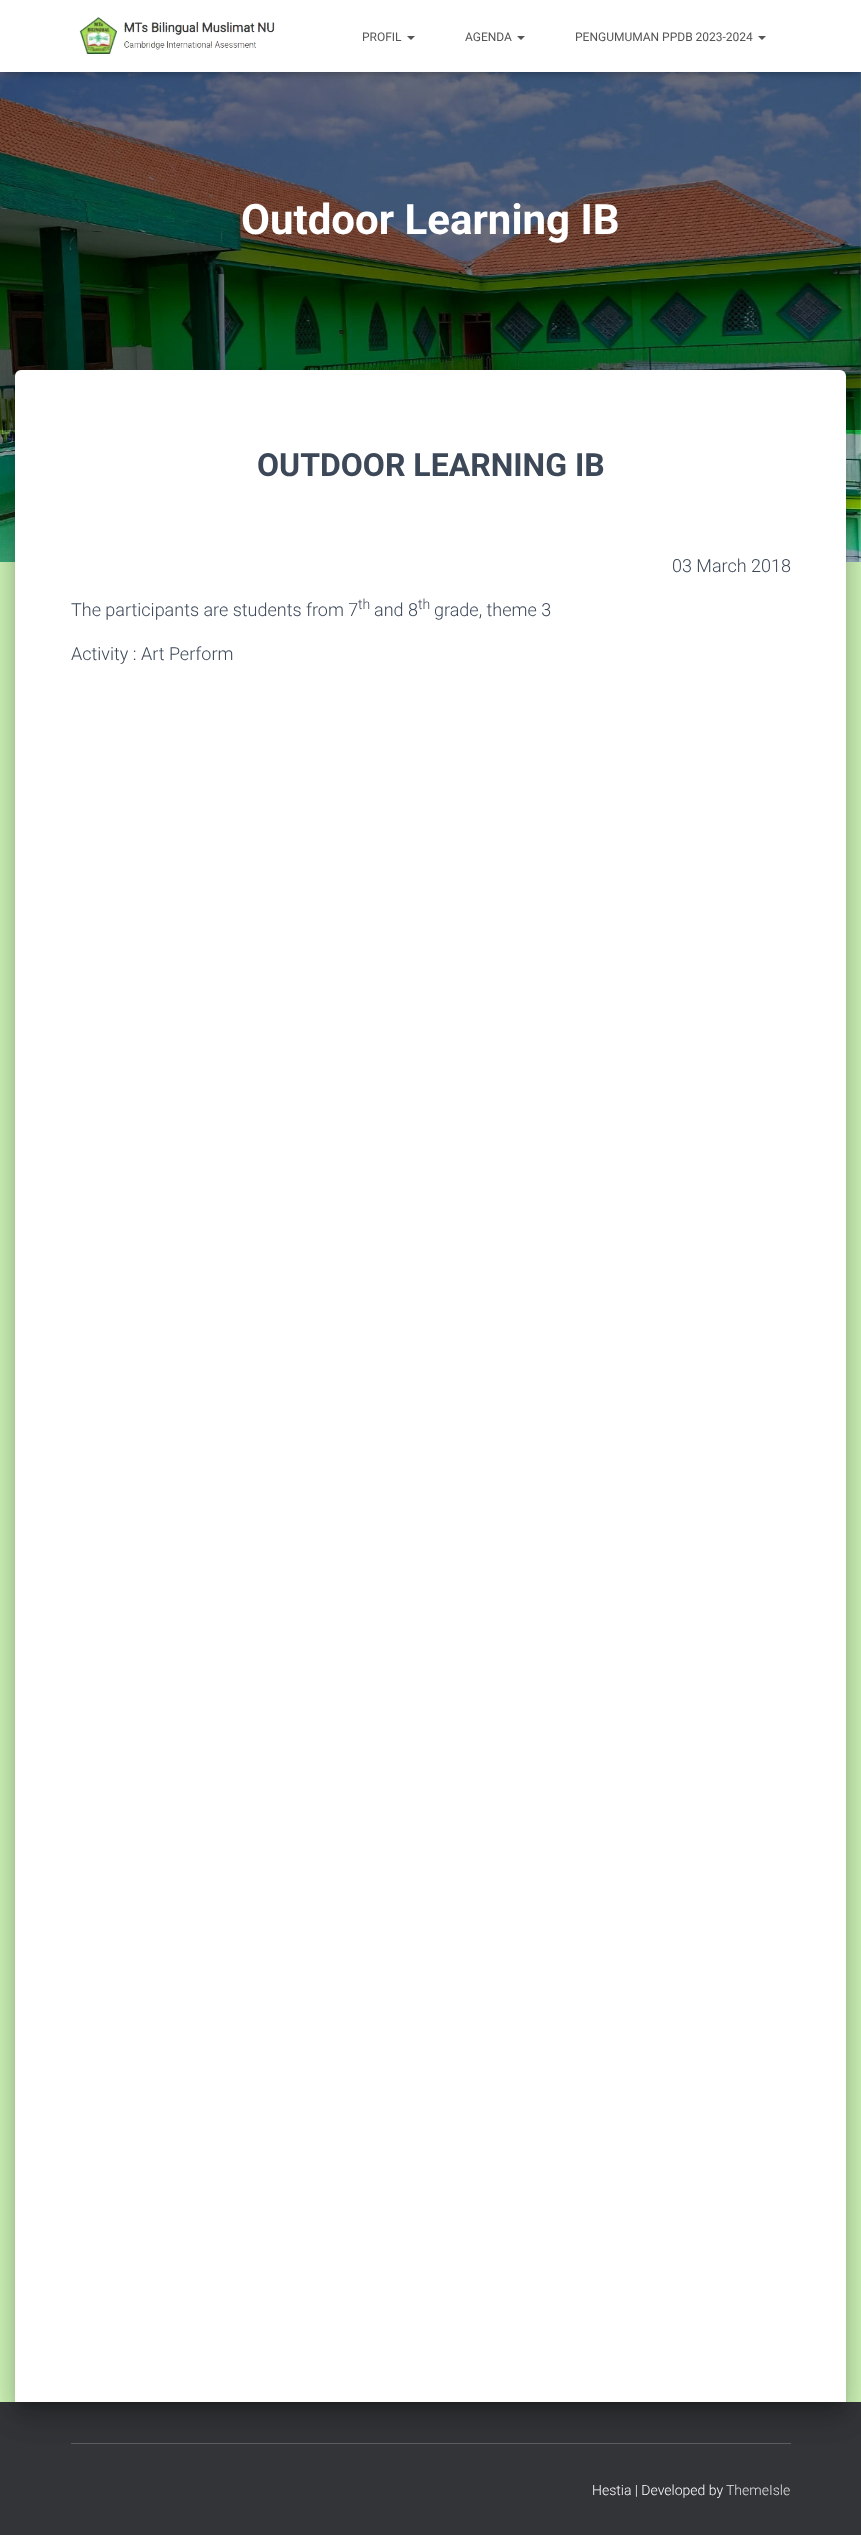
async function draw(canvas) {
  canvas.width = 861;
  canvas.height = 2535;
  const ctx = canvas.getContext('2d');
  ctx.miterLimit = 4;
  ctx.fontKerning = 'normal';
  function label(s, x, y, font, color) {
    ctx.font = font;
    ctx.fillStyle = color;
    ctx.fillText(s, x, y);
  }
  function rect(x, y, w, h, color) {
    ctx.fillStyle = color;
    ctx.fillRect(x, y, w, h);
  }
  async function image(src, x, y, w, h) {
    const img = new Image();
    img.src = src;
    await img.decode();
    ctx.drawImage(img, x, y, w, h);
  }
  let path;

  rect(0, 0, 861, 2535, '#cef4b7');
  await image('assets/img1.png', 0, 72, 861, 490);
  rect(0, 72, 861, 358, '#00000080');
  ctx.fillStyle = '#0000001a';
  ctx.filter = 'blur(2.5px)';
  ctx.beginPath();
  ctx.rect(2, 6, 857, 68);
  ctx.fill();
  ctx.filter = 'none';
  ctx.fillStyle = '#0000001f';
  ctx.filter = 'blur(5px)';
  ctx.beginPath();
  ctx.rect(0, 1, 861, 72);
  ctx.fill();
  ctx.filter = 'none';
  ctx.fillStyle = '#0000006b';
  ctx.filter = 'blur(5px)';
  ctx.beginPath();
  ctx.rect(6, 7, 849, 60);
  ctx.fill();
  ctx.filter = 'none';
  rect(0, 0, 861, 72, '#fff');
  await image('assets/img2.png', 79, 17, 196, 37);
  label('PROFIL', 362, 41, '12px Roboto', '#555');
  path = new Path2D('M407 36H415L411 40Z');
  ctx.fill(path);
  label('AGENDA', 465, 41, '12px Roboto', '#555');
  path = new Path2D('M517 36H525L521 40Z');
  ctx.fill(path);
  label('PENGUMUMAN PPDB 2023-2024', 575, 41, '12px Roboto', '#555');
  path = new Path2D('M758 36H766L762 40Z');
  ctx.fill(path);
  label('Outdoor Learning IB', 241, 234, 'bold 42px Roboto', '#fff');
  rect(0, 2402, 861, 133, '#323437');
  ctx.fillStyle = '#00000033';
  ctx.filter = 'blur(5px)';
  ctx.beginPath();
  ctx.roundRect(20, 383, 821, 2022, 1);
  ctx.fill();
  ctx.filter = 'none';
  rect(71, 2443, 720, 1, '#5e5e5e');
  ctx.fillStyle = '#0000001f';
  ctx.filter = 'blur(15px)';
  ctx.beginPath();
  ctx.roundRect(10, 371, 841, 2042, 11);
  ctx.fill();
  ctx.filter = 'none';
  ctx.fillStyle = '#00000024';
  ctx.filter = 'blur(12px)';
  ctx.beginPath();
  ctx.roundRect(13, 384, 835, 2036, 8);
  ctx.fill();
  ctx.filter = 'none';
  ctx.fillStyle = '#fff';
  ctx.beginPath();
  ctx.roundRect(15, 370, 831, 2032, [6, 6, 0, 0]);
  ctx.fill();
  label('OUTDOOR LEARNING IB', 257, 476, 'bold 32px Roboto', '#3c4858');
  label('03 March 2018', 672, 572, '300 18px Roboto', '#3c4858');
  label('The participants are students from 7', 71, 616, '300 18px Roboto', '#3c4858');
  label('th', 358, 609, '300 14px Roboto', '#3c4858');
  label('and 8', 374, 616, '300 18px Roboto', '#3c4858');
  label('th', 418, 609, '300 14px Roboto', '#3c4858');
  label('grade, theme 3', 434, 616, '300 18px Roboto', '#3c4858');
  label('Activity : Art Perform', 71, 660, '300 18px Roboto', '#3c4858');
  label('Hestia | Developed by', 592, 2495, '300 14px Roboto', '#fff');
  label('ThemeIsle', 726, 2495, '300 14px Roboto', '#e2e3e3');
}

draw(document.querySelector('canvas'));
